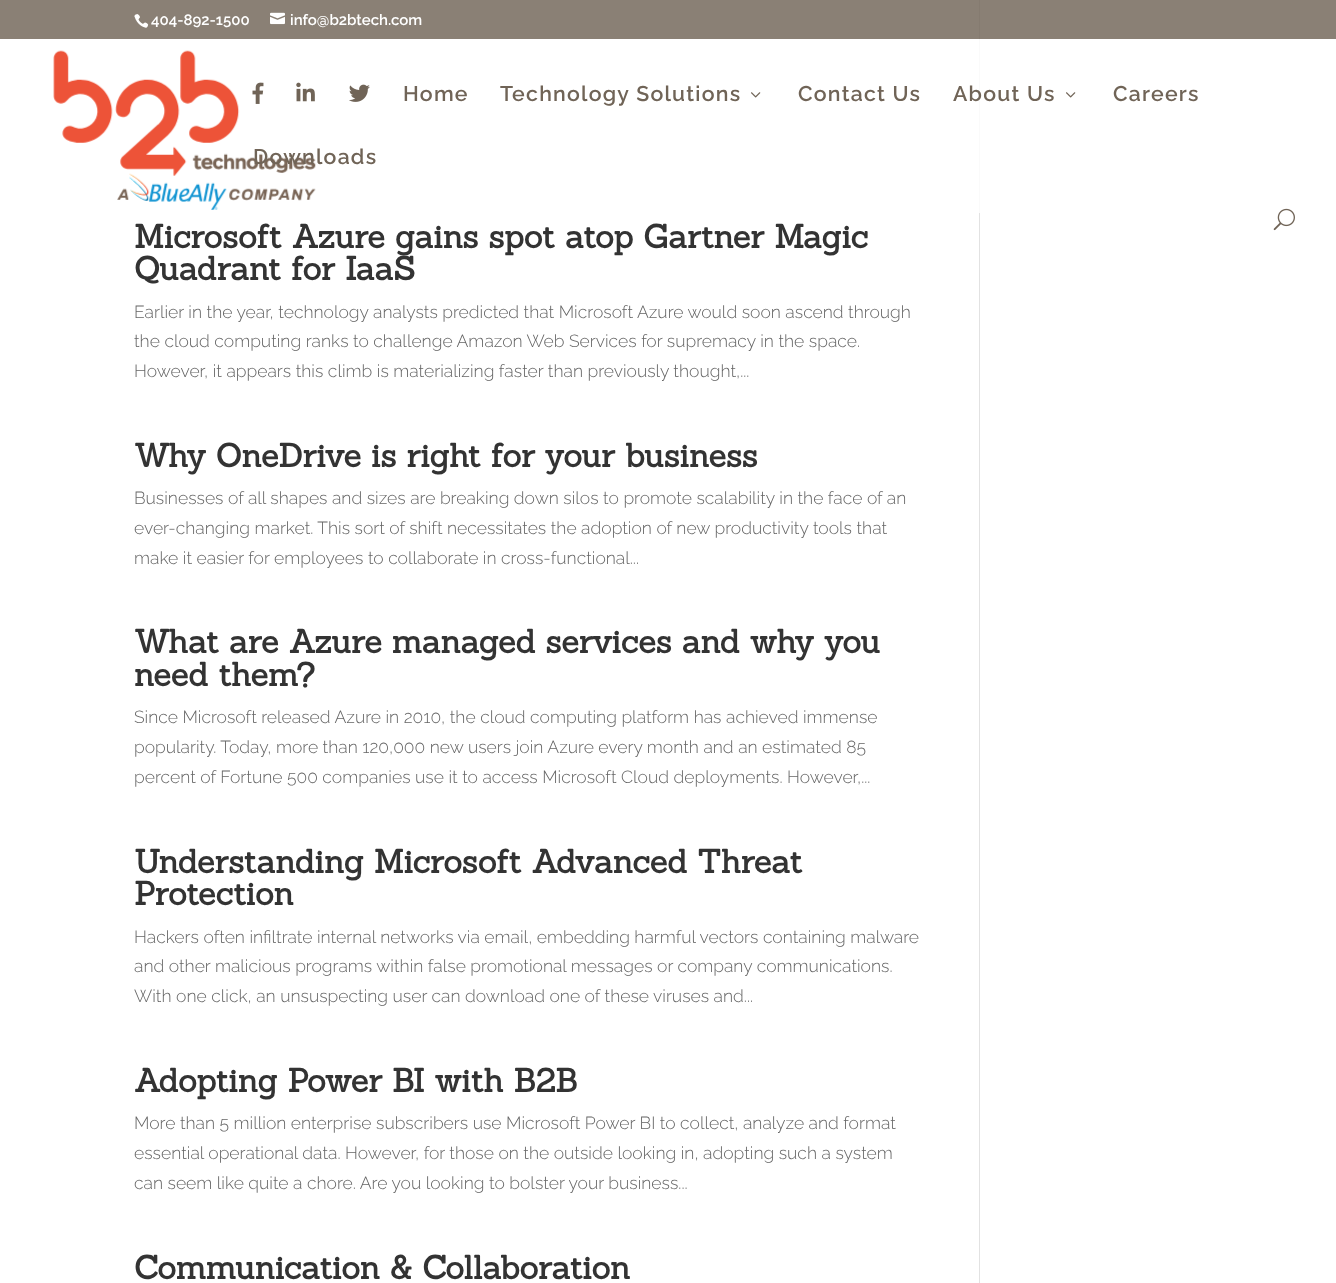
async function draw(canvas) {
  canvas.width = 1336;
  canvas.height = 1283;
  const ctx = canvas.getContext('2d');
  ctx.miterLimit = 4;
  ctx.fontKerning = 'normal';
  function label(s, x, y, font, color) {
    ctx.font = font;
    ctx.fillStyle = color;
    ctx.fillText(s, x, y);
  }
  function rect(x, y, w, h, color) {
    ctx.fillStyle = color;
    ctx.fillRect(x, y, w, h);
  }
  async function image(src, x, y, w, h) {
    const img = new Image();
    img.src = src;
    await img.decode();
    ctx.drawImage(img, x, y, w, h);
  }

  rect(0, 0, 1336, 1283, '#fff');
  rect(0, 0, 1336, 39, '#8a8075');
  await image('assets/img1.png', 134, 14, 15, 14);
  label('404-892-1500', 151, 25, '600 15px Raleway', '#fff');
  await image('assets/img2.png', 270, 12, 15, 13);
  label('info@b2btech.com', 290, 25, '600 15px Raleway', '#fff');
  await image('assets/img3.png', 53, 50, 263, 160);
  await image('assets/img4.png', 252, 82, 12, 22);
  await image('assets/img5.png', 296, 82, 19, 20);
  await image('assets/img6.png', 349, 84, 21, 18);
  ctx.letterSpacing = '1.25px';
  label('Home', 403, 101, '600 21.25px Raleway', '#706457');
  label('Technology Solutions', 500, 101, '600 21.25px Raleway', '#706457');
  await image('assets/img7.png', 751, 92, 10, 6);
  label('Contact Us', 798, 101, '600 21.25px Raleway', '#706457');
  rect(979, 39, 1, 174, '#fafafa');
  label('About Us', 953, 101, '600 21.25px Raleway', '#706457');
  await image('assets/img7.png', 1066, 92, 10, 6);
  label('Careers', 1113, 101, '600 21.25px Raleway', '#706457');
  label('Downloads', 253, 164, '600 21.25px Raleway', '#706457');
  await image('assets/img8.png', 1273, 208, 22, 23);
  ctx.letterSpacing = '0px';
  label('Microsoft Azure gains spot atop Gartner Magic', 134, 248, 'bold 32.5px Sanchez', '#333');
  label('Quadrant for IaaS', 134, 280, 'bold 32.5px Sanchez', '#333');
  label('Earlier in the year, technology analysts predicted that Microsoft Azure would soon ascend through', 134, 318, '300 17.5px Raleway', '#666');
  label('the cloud computing ranks to challenge Amazon Web Services for supremacy in the space.', 134, 347, '300 17.5px Raleway', '#666');
  label('However, it appears this climb is materializing faster than previously thought,...', 134, 377, '300 17.5px Raleway', '#666');
  label('Why OneDrive is right for your business', 134, 467, 'bold 32.5px Sanchez', '#333');
  label('Businesses of all shapes and sizes are breaking down silos to promote scalability in the face of an', 134, 504, '300 17.5px Raleway', '#666');
  label('ever-changing market. This sort of shift necessitates the adoption of new productivity tools that', 134, 534, '300 17.5px Raleway', '#666');
  label('make it easier for employees to collaborate in cross-functional...', 134, 564, '300 17.5px Raleway', '#666');
  label('What are Azure managed services and why you', 134, 653, 'bold 32.5px Sanchez', '#333');
  label('need them?', 134, 686, 'bold 32.5px Sanchez', '#333');
  label('Since Microsoft released Azure in 2010, the cloud computing platform has achieved immense', 134, 723, '300 17.5px Raleway', '#666');
  label('popularity. Today, more than 120,000 new users join Azure every month and an estimated 85', 134, 753, '300 17.5px Raleway', '#666');
  label('percent of Fortune 500 companies use it to access Microsoft Cloud deployments. However,...', 134, 783, '300 17.5px Raleway', '#666');
  label('Understanding Microsoft Advanced Threat', 134, 873, 'bold 32.5px Sanchez', '#333');
  label('Protection', 134, 905, 'bold 32.5px Sanchez', '#333');
  label('Hackers often infiltrate internal networks via email, embedding harmful vectors containing malware', 134, 943, '300 17.5px Raleway', '#666');
  label('and other malicious programs within false promotional messages or company communications.', 134, 972, '300 17.5px Raleway', '#666');
  label('With one click, an unsuspecting user can download one of these viruses and...', 134, 1002, '300 17.5px Raleway', '#666');
  label('Adopting Power BI with B2B', 134, 1092, 'bold 32.5px Sanchez', '#333');
  label('More than 5 million enterprise subscribers use Microsoft Power BI to collect, analyze and format', 134, 1129, '300 17.5px Raleway', '#666');
  label('essential operational data. However, for those on the outside looking in, adopting such a system', 134, 1159, '300 17.5px Raleway', '#666');
  label('can seem like quite a chore. Are you looking to bolster your business...', 134, 1189, '300 17.5px Raleway', '#666');
  label('Communication & Collaboration', 134, 1279, 'bold 32.5px Sanchez', '#333');
  rect(979, 213, 1, 1070, '#e2e2e2');
  rect(979, 0, 1, 39, '#857b70');
}

draw(document.querySelector('canvas'));
